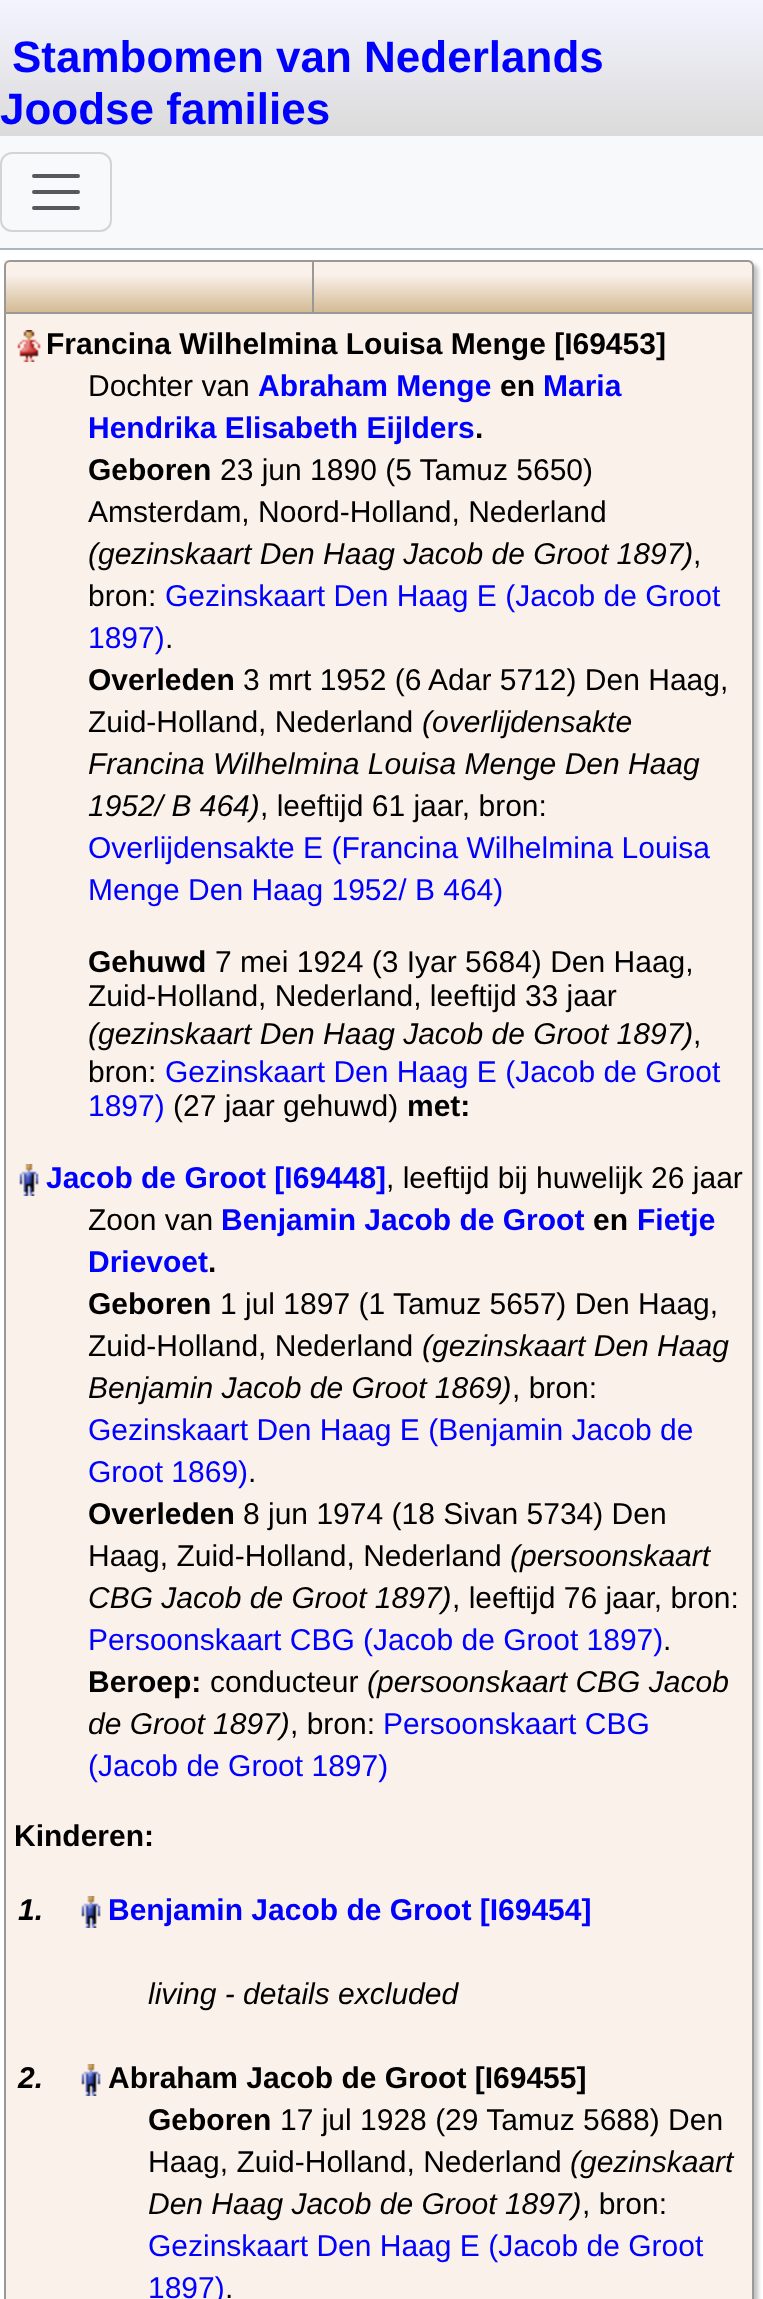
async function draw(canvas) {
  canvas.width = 763;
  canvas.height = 2299;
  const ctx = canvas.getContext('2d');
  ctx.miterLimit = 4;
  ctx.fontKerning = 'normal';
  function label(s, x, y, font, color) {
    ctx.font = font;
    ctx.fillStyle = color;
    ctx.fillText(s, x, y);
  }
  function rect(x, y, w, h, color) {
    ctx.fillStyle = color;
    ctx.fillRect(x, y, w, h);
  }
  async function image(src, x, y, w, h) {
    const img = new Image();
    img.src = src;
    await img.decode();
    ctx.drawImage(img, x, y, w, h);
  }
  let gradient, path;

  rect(0, 0, 763, 2299, '#fff');
  gradient = ctx.createLinearGradient(382, 0, 382, 136);
  gradient.addColorStop(0, '#f4f4ff');
  gradient.addColorStop(1, '#dbdbdb');
  ctx.fillStyle = gradient;
  ctx.fillRect(0, 0, 763, 136);
  label('Stambomen van Nederlands', 12, 72, 'bold 44px Liberation Sans', '#00f');
  label('Joodse families', 0, 124, 'bold 44px Liberation Sans', '#00f');
  rect(0, 136, 763, 112, '#f8f9fa');
  rect(0, 248, 763, 2, '#adb5bd');
  ctx.beginPath();
  ctx.roundRect(1, 153, 110, 78, 11);
  ctx.strokeStyle = '#d3d4d5';
  ctx.lineWidth = 2;
  ctx.stroke();
  path = new Path2D('M34 176H78M34 192H78M34 208H78');
  ctx.strokeStyle = '#575a5d';
  ctx.lineWidth = 4;
  ctx.lineCap = 'round';
  ctx.stroke(path);
  ctx.fillStyle = '#c0c0c0';
  ctx.filter = 'blur(2px)';
  ctx.beginPath();
  ctx.roundRect(8, 264, 750, 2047, 6);
  ctx.fill();
  ctx.filter = 'none';
  rect(6, 314, 746, 1985, '#faf1eb');
  gradient = ctx.createLinearGradient(379, 314, 379, 260);
  gradient.addColorStop(0, '#d1b88f');
  gradient.addColorStop(0.73, '#faf1eb');
  ctx.fillStyle = gradient;
  ctx.fillRect(4, 260, 750, 52);
  ctx.beginPath();
  ctx.roundRect(5, 261, 308, 52, [5, 0, 0, 0]);
  ctx.strokeStyle = '#999';
  ctx.lineWidth = 2;
  ctx.stroke();
  ctx.fillStyle = '#999';
  path = new Path2D('M314 260H748C751 260 754 263 754 266V314H314ZM314 262H748C750 262 752 264 752 266V312H314Z');
  ctx.fill(path, 'evenodd');
  path = new Path2D('M4 314H754V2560C754 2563 751 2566 748 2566H10C7 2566 4 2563 4 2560ZM6 314H752V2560C752 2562 750 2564 748 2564H10C8 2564 6 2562 6 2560Z');
  ctx.fill(path, 'evenodd');
  await image('assets/img1.png', 17, 330, 24, 32);
  label('Francina Wilhelmina Louisa Menge [I69453]', 46, 354, 'bold 30px Liberation Sans', '#000');
  label('Dochter van', 88, 396, '30px Liberation Sans', '#000');
  label('Abraham Menge', 258, 396, 'bold 30px Liberation Sans', '#00f');
  label('en', 500, 396, 'bold 30px Liberation Sans', '#000');
  label('Maria', 543, 396, 'bold 30px Liberation Sans', '#00f');
  label('Hendrika Elisabeth Eijlders', 88, 438, 'bold 30px Liberation Sans', '#00f');
  label('.', 475, 438, 'bold 30px Liberation Sans', '#000');
  label('Geboren', 88, 480, 'bold 30px Liberation Sans', '#000');
  label('23 jun 1890 (5 Tamuz 5650)', 220, 480, '30px Liberation Sans', '#000');
  label('Amsterdam, Noord-Holland, Nederland', 88, 522, '30px Liberation Sans', '#000');
  label('(gezinskaart Den Haag Jacob de Groot 1897)', 88, 564, 'italic 30px Liberation Sans', '#000');
  label(',', 693, 564, '30px Liberation Sans', '#000');
  label('bron:', 88, 606, '30px Liberation Sans', '#000');
  label('Gezinskaart Den Haag E (Jacob de Groot', 165, 606, '30px Liberation Sans', '#00f');
  label('1897)', 88, 648, '30px Liberation Sans', '#00f');
  label('.', 165, 648, '30px Liberation Sans', '#000');
  label('Overleden', 88, 690, 'bold 30px Liberation Sans', '#000');
  label('3 mrt 1952 (6 Adar 5712) Den Haag,', 243, 690, '30px Liberation Sans', '#000');
  label('Zuid-Holland, Nederland', 88, 732, '30px Liberation Sans', '#000');
  label('(overlijdensakte', 422, 732, 'italic 30px Liberation Sans', '#000');
  label('Francina Wilhelmina Louisa Menge Den Haag', 88, 774, 'italic 30px Liberation Sans', '#000');
  label('1952/ B 464)', 88, 816, 'italic 30px Liberation Sans', '#000');
  label(', leeftijd 61 jaar, bron:', 260, 816, '30px Liberation Sans', '#000');
  label('Overlijdensakte E (Francina Wilhelmina Louisa', 88, 858, '30px Liberation Sans', '#00f');
  label('Menge Den Haag 1952/ B 464)', 88, 900, '30px Liberation Sans', '#00f');
  label('Gehuwd', 88, 972, 'bold 30px Liberation Sans', '#000');
  label('7 mei 1924 (3 Iyar 5684) Den Haag,', 215, 972, '30px Liberation Sans', '#000');
  label('Zuid-Holland, Nederland, leeftijd 33 jaar', 88, 1006, '30px Liberation Sans', '#000');
  label('(gezinskaart Den Haag Jacob de Groot 1897)', 88, 1044, 'italic 30px Liberation Sans', '#000');
  label(',', 693, 1044, '30px Liberation Sans', '#000');
  label('bron:', 88, 1082, '30px Liberation Sans', '#000');
  label('Gezinskaart Den Haag E (Jacob de Groot', 165, 1082, '30px Liberation Sans', '#00f');
  label('1897)', 88, 1116, '30px Liberation Sans', '#00f');
  label('(27 jaar gehuwd)', 173, 1116, '30px Liberation Sans', '#000');
  label('met:', 407, 1116, 'bold 30px Liberation Sans', '#000');
  await image('assets/img2.png', 19, 1164, 20, 32);
  label('Jacob de Groot [I69448]', 46, 1188, 'bold 30px Liberation Sans', '#00f');
  label(', leeftijd bij huwelijk 26 jaar', 386, 1188, '30px Liberation Sans', '#000');
  label('Zoon van', 88, 1230, '30px Liberation Sans', '#000');
  label('Benjamin Jacob de Groot', 221, 1230, 'bold 30px Liberation Sans', '#00f');
  label('en', 593, 1230, 'bold 30px Liberation Sans', '#000');
  label('Fietje', 637, 1230, 'bold 30px Liberation Sans', '#00f');
  label('Drievoet', 88, 1272, 'bold 30px Liberation Sans', '#00f');
  label('.', 208, 1272, 'bold 30px Liberation Sans', '#000');
  label('Geboren', 88, 1314, 'bold 30px Liberation Sans', '#000');
  label('1 jul 1897 (1 Tamuz 5657) Den Haag,', 220, 1314, '30px Liberation Sans', '#000');
  label('Zuid-Holland, Nederland', 88, 1356, '30px Liberation Sans', '#000');
  label('(gezinskaart Den Haag', 422, 1356, 'italic 30px Liberation Sans', '#000');
  label('Benjamin Jacob de Groot 1869)', 88, 1398, 'italic 30px Liberation Sans', '#000');
  label(', bron:', 512, 1398, '30px Liberation Sans', '#000');
  label('Gezinskaart Den Haag E (Benjamin Jacob de', 88, 1440, '30px Liberation Sans', '#00f');
  label('Groot 1869)', 88, 1482, '30px Liberation Sans', '#00f');
  label('.', 248, 1482, '30px Liberation Sans', '#000');
  label('Overleden', 88, 1524, 'bold 30px Liberation Sans', '#000');
  label('8 jun 1974 (18 Sivan 5734) Den', 243, 1524, '30px Liberation Sans', '#000');
  label('Haag, Zuid-Holland, Nederland', 88, 1566, '30px Liberation Sans', '#000');
  label('(persoonskaart', 510, 1566, 'italic 30px Liberation Sans', '#000');
  label('CBG Jacob de Groot 1897)', 88, 1608, 'italic 30px Liberation Sans', '#000');
  label(', leeftijd 76 jaar, bron:', 452, 1608, '30px Liberation Sans', '#000');
  label('Persoonskaart CBG (Jacob de Groot 1897)', 88, 1650, '30px Liberation Sans', '#00f');
  label('.', 663, 1650, '30px Liberation Sans', '#000');
  label('Beroep:', 88, 1692, 'bold 30px Liberation Sans', '#000');
  label('conducteur', 210, 1692, '30px Liberation Sans', '#000');
  label('(persoonskaart CBG Jacob', 367, 1692, 'italic 30px Liberation Sans', '#000');
  label('de Groot 1897)', 88, 1734, 'italic 30px Liberation Sans', '#000');
  label(', bron:', 290, 1734, '30px Liberation Sans', '#000');
  label('Persoonskaart CBG', 383, 1734, '30px Liberation Sans', '#00f');
  label('(Jacob de Groot 1897)', 88, 1776, '30px Liberation Sans', '#00f');
  label('Kinderen:', 14, 1846, 'bold 30px Liberation Sans', '#000');
  label('1.', 18, 1920, 'italic bold 30px Liberation Sans', '#000');
  await image('assets/img2.png', 81, 1896, 20, 32);
  label('Benjamin Jacob de Groot [I69454]', 108, 1920, 'bold 30px Liberation Sans', '#00f');
  label('living - details excluded', 148, 2004, 'italic 30px Liberation Sans', '#000');
  label('2.', 18, 2088, 'italic bold 30px Liberation Sans', '#000');
  await image('assets/img2.png', 81, 2064, 20, 32);
  label('Abraham Jacob de Groot [I69455]', 108, 2088, 'bold 30px Liberation Sans', '#000');
  label('Geboren', 148, 2130, 'bold 30px Liberation Sans', '#000');
  label('17 jul 1928 (29 Tamuz 5688) Den', 280, 2130, '30px Liberation Sans', '#000');
  label('Haag, Zuid-Holland, Nederland', 148, 2172, '30px Liberation Sans', '#000');
  label('(gezinskaart', 570, 2172, 'italic 30px Liberation Sans', '#000');
  label('Den Haag Jacob de Groot 1897)', 148, 2214, 'italic 30px Liberation Sans', '#000');
  label(', bron:', 582, 2214, '30px Liberation Sans', '#000');
  label('Gezinskaart Den Haag E (Jacob de Groot', 148, 2256, '30px Liberation Sans', '#00f');
  label('1897)', 148, 2298, '30px Liberation Sans', '#00f');
  label('.', 225, 2298, '30px Liberation Sans', '#000');
}

draw(document.querySelector('canvas'));
